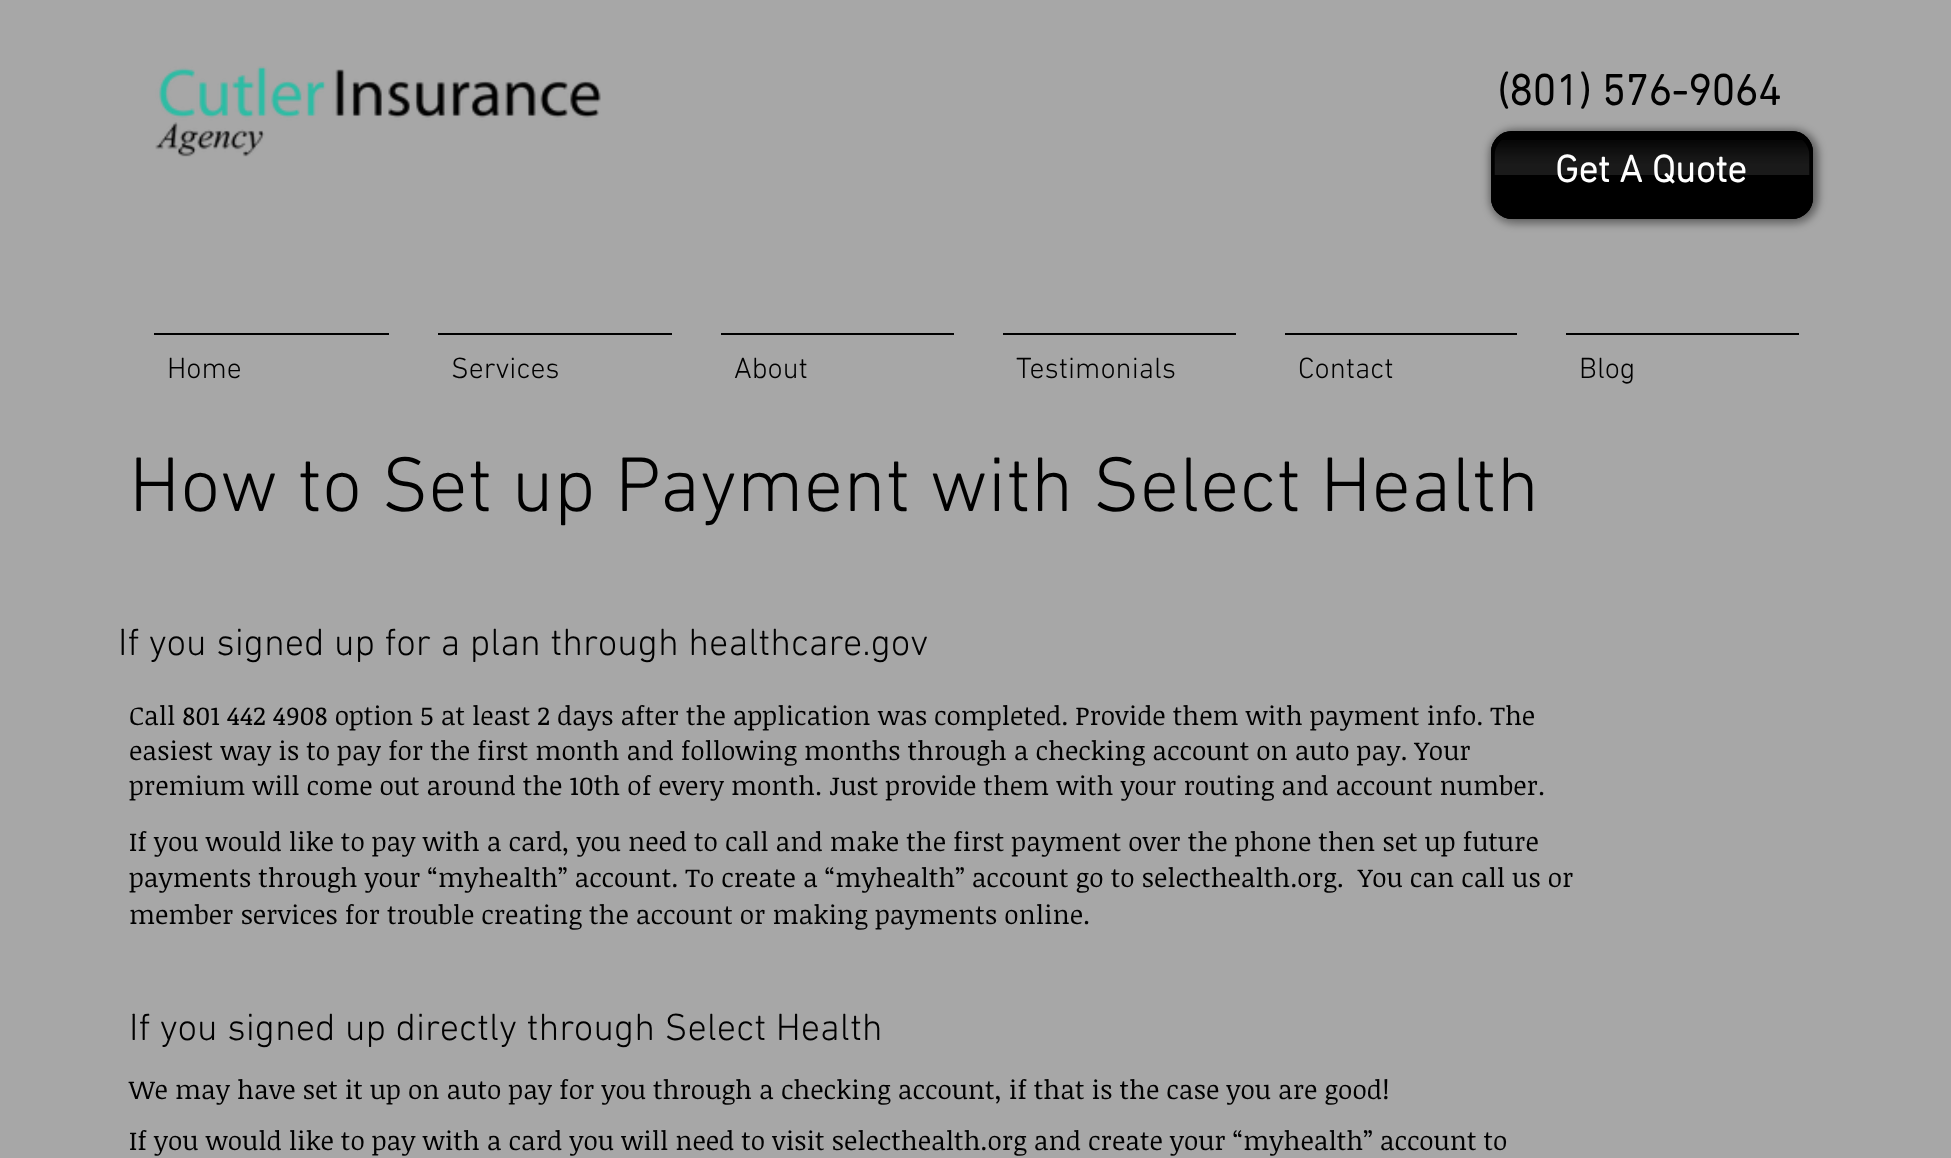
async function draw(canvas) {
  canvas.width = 1951;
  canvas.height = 1158;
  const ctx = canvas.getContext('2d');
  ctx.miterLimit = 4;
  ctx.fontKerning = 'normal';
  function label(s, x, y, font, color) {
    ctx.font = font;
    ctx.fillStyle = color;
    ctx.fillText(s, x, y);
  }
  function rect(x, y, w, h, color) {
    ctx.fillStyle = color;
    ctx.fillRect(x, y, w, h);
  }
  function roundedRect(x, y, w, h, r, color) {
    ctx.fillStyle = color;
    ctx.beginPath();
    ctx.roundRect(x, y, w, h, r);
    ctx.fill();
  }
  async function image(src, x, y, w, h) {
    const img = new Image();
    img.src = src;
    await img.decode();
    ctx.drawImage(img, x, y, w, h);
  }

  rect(0, 0, 1951, 1158, '#a7a7a7');
  await image('assets/img1.png', 155, 66, 446, 91);
  label('(801) 576-9064', 1497, 105, 'bold 43.75px "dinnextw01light"', '#000');
  ctx.fillStyle = '#ffffff4d';
  ctx.filter = 'blur(2.5px)';
  ctx.beginPath();
  ctx.roundRect(1493, 133, 322, 88, 21);
  ctx.fill();
  ctx.filter = 'none';
  ctx.fillStyle = '#00000099';
  ctx.filter = 'blur(5px)';
  ctx.beginPath();
  ctx.roundRect(1491, 131, 326, 91, 23);
  ctx.fill();
  ctx.filter = 'none';
  roundedRect(1491, 131, 322, 88, 21, '#000');
  await image('assets/img2.png', 1491, 132, 322, 87);
  ctx.beginPath();
  ctx.roundRect(1493, 133, 318, 84, 19);
  ctx.strokeStyle = '#000';
  ctx.lineWidth = 4;
  ctx.stroke();
  label('Get A Quote', 1555, 182, 'bold 38.5px "dinnextw01light"', '#fff');
  await image('assets/img3.png', 1494, 140, 316, 35);
  rect(154, 333, 235, 2, '#000');
  label('Home', 167, 378, '300 29.75px "dinnextw01light"', '#000');
  rect(438, 333, 234, 2, '#000');
  label('Services', 451, 378, '300 29.75px "dinnextw01light"', '#000');
  rect(721, 333, 233, 2, '#000');
  label('About', 734, 378, '300 29.75px "dinnextw01light"', '#000');
  rect(1003, 333, 233, 2, '#000');
  label('Testimonials', 1016, 378, '300 29.75px "dinnextw01light"', '#000');
  rect(1285, 333, 232, 2, '#000');
  label('Contact', 1298, 378, '300 29.75px "dinnextw01light"', '#000');
  rect(1566, 333, 233, 2, '#000');
  label('Blog', 1579, 378, '300 29.75px "dinnextw01light"', '#000');
  label('How to Set up Payment with Select Health', 129, 511, '300 78.75px "dinnextw01light"', '#000');
  label('If you signed up for a plan through healthcare.gov', 118, 655, '300 38.5px "dinnextw01light"', '#000');
  label('Call 801 442 4908 option 5 at least 2 days after the application was completed. Provide them with payment info. The', 129, 725, '26.25px Noticia Text', '#000');
  label('easiest way is to pay for the first month and following months through a checking account on auto pay. Your', 129, 760, '26.25px Noticia Text', '#000');
  label('premium will come out around the 10th of every month. Just provide them with your routing and account number.', 129, 795, '26.25px Noticia Text', '#000');
  label('If you would like to pay with a card, you need to call and make the first payment over the phone then set up future', 129, 851, '26.25px Noticia Text', '#000');
  label('payments through your “myhealth” account. To create a “myhealth” account go to selecthealth.org.  You can call us or', 129, 887, '26.25px Noticia Text', '#000');
  label('member services for trouble creating the account or making payments online.', 129, 924, '26.25px Noticia Text', '#000');
  label('If you signed up directly through Select Health', 129, 1040, '300 38.5px "dinnextw01light"', '#000');
  label('We may have set it up on auto pay for you through a checking account, if that is the case you are good!', 129, 1099, '26.25px Noticia Text', '#000');
  label('If you would like to pay with a card you will need to visit selecthealth.org and create your “myhealth” account to', 129, 1150, '26.25px Noticia Text', '#000');
}

draw(document.querySelector('canvas'));
